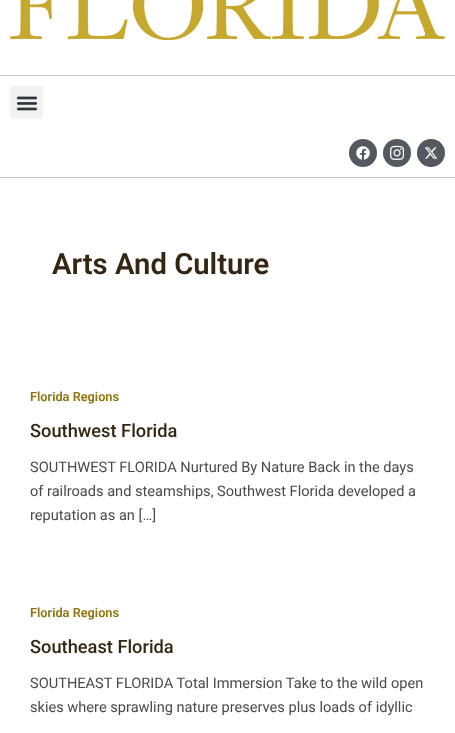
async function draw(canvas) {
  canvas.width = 455;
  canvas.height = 733;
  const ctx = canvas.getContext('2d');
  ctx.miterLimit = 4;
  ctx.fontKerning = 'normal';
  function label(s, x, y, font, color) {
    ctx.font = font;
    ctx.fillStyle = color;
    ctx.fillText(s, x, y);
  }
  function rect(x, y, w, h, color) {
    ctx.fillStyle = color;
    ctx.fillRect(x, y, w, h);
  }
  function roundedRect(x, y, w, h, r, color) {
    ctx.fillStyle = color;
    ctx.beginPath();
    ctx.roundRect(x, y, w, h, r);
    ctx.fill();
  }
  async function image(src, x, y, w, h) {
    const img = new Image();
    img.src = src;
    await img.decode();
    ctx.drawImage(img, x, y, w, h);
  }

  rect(0, 0, 455, 733, '#fff');
  await image('assets/img1.png', 10, 0, 435, 40);
  rect(0, 75, 455, 1, '#cac7c7');
  rect(0, 177, 455, 1, '#cac7c7');
  roundedRect(10, 86, 33, 33, 3, '#f2f2f2');
  await image('assets/img2.png', 16, 96, 22, 15);
  ctx.fillStyle = '#54595f';
  ctx.beginPath();
  ctx.arc(363, 153, 14, 0, 2 * Math.PI);
  ctx.fill();
  await image('assets/img3.png', 356, 146, 14, 14);
  ctx.beginPath();
  ctx.arc(397, 153, 14, 0, 2 * Math.PI);
  ctx.fill();
  await image('assets/img4.png', 390, 145, 15, 15);
  ctx.beginPath();
  ctx.arc(431, 153, 14, 0, 2 * Math.PI);
  ctx.fill();
  await image('assets/img5.png', 424, 147, 14, 12);
  label('Arts And Culture', 52, 274, '600 29.25px Roboto', '#352513');
  label('Florida Regions', 30, 401, '600 12.75px Roboto', '#8e7309');
  label('Southwest Florida', 30, 437, '500 18.25px Roboto', '#352513');
  label('SOUTHWEST FLORIDA Nurtured By Nature Back in the days', 30, 472, '14.6px Roboto', '#4a4a4a');
  label('of railroads and steamships, Southwest Florida developed a', 30, 496, '14.6px Roboto', '#4a4a4a');
  label('reputation as an […]', 30, 520, '14.6px Roboto', '#4a4a4a');
  label('Florida Regions', 30, 617, '600 12.75px Roboto', '#8e7309');
  label('Southeast Florida', 30, 653, '500 18.25px Roboto', '#352513');
  label('SOUTHEAST FLORIDA Total Immersion Take to the wild open', 30, 688, '14.6px Roboto', '#4a4a4a');
  label('skies where sprawling nature preserves plus loads of idyllic', 30, 712, '14.6px Roboto', '#4a4a4a');
}

draw(document.querySelector('canvas'));
